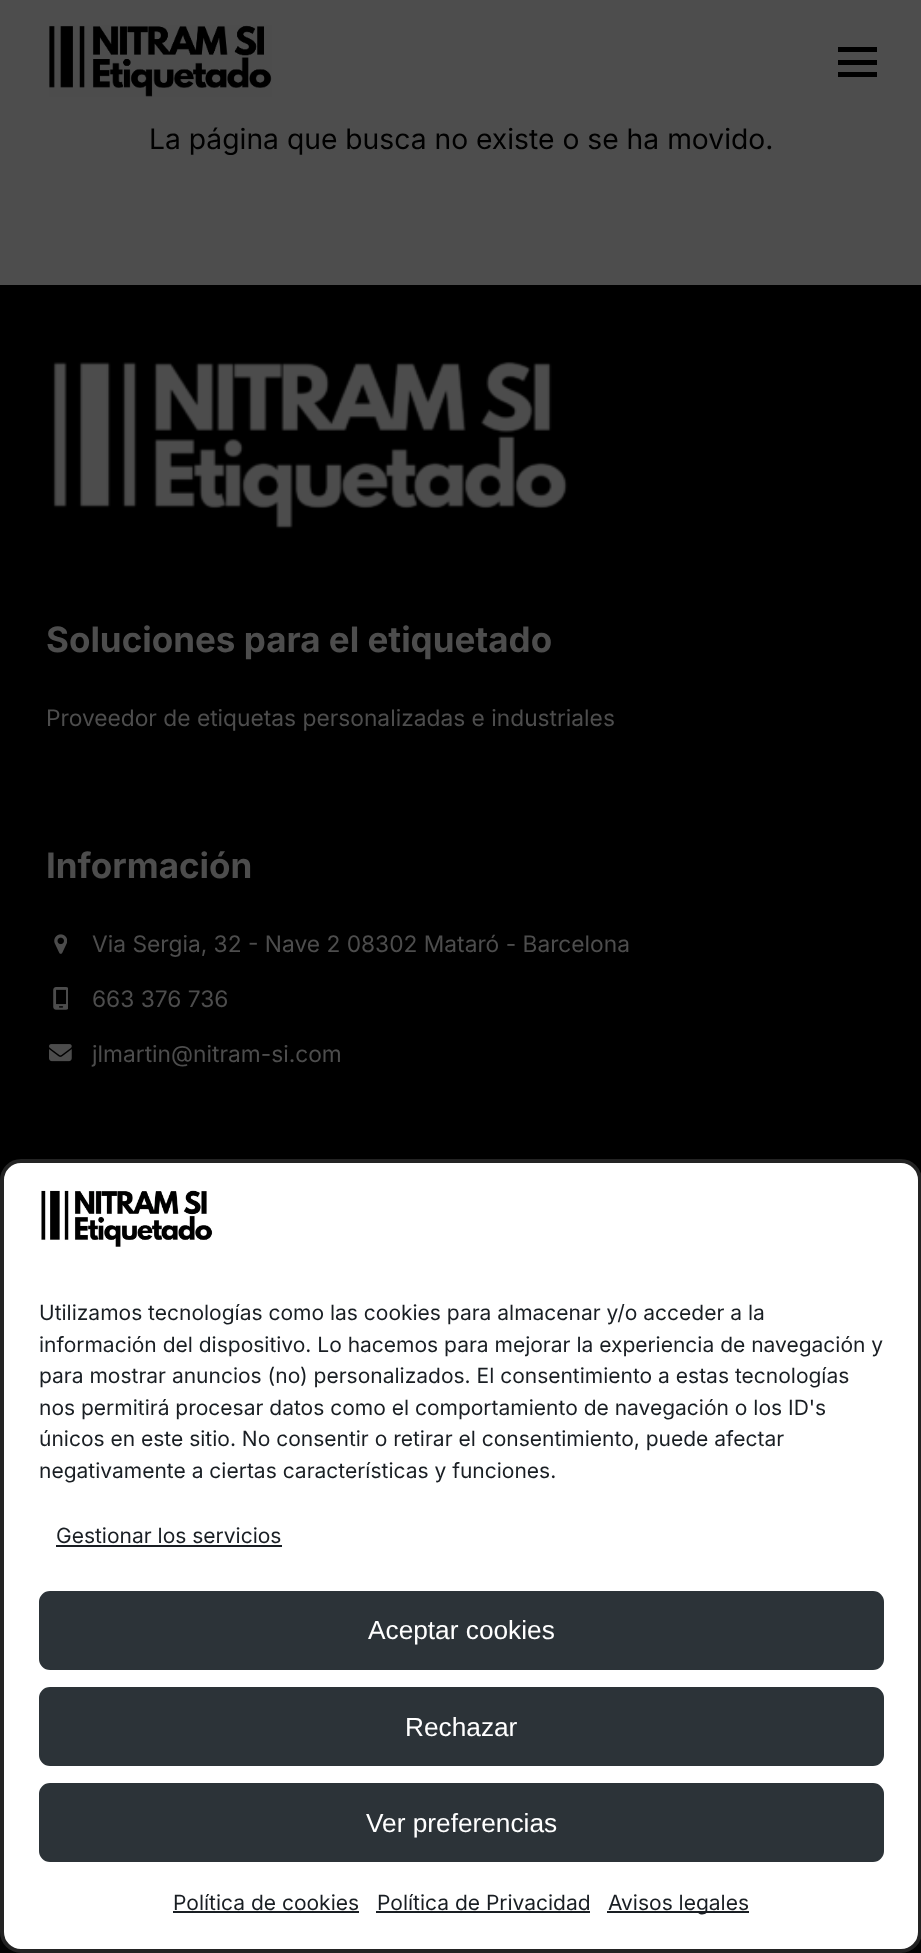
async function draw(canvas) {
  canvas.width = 921;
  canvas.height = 1953;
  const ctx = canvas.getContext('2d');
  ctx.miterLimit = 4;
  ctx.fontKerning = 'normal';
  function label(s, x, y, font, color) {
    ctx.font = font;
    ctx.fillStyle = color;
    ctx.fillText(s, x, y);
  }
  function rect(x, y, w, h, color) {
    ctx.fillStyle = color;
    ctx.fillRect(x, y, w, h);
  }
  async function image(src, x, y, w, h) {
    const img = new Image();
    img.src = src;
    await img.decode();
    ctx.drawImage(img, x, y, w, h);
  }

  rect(0, 0, 921, 1953, '#4d4d4d');
  await image('assets/img1.png', 49, 25, 223, 72);
  rect(838, 60, 39, 5, '#000');
  rect(838, 47, 39, 5, '#000');
  rect(838, 72, 39, 5, '#000');
  label('La página que busca no existe o se ha movido.', 149, 149, '28.25px Inter', '#000');
  rect(0, 285, 921, 895, '#000');
  await image('assets/img2.png', 52, 361, 516, 168);
  label('Soluciones para el etiquetado', 46, 652, 'bold 35px Inter', '#4d4d4d');
  label('Proveedor de etiquetas personalizadas e industriales', 46, 726, '22.75px Inter', '#4d4d4d');
  label('Información', 46, 878, 'bold 35px Inter', '#4d4d4d');
  await image('assets/img3.png', 54, 934, 13, 20);
  label('Via Sergia, 32 - Nave 2 08302 Mataró - Barcelona', 92, 952, '22.75px Inter', '#4d4d4d');
  await image('assets/img4.png', 53, 987, 15, 23);
  label('663 376 736', 92, 1007, '22.75px Inter', '#4d4d4d');
  await image('assets/img5.png', 49, 1044, 23, 18);
  label('jlmartin@nitram-si.com', 92, 1062, '22.75px Inter', '#4d4d4d');
  rect(0, 1932, 921, 21, '#050505');
  ctx.fillStyle = '#00000030';
  ctx.filter = 'blur(17.5px)';
  ctx.beginPath();
  ctx.roundRect(0, 1176, 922, 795, 21);
  ctx.fill();
  ctx.filter = 'none';
  ctx.fillStyle = '#fff';
  ctx.beginPath();
  ctx.roundRect(2, 1161, 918, 790, 19);
  ctx.fill();
  ctx.strokeStyle = '#232323';
  ctx.lineWidth = 4;
  ctx.stroke();
  await image('assets/img6.png', 41, 1190, 172, 57);
  label('Utilizamos tecnologías como las cookies para almacenar y/o acceder a la', 39, 1320, '21px Inter', '#191e23');
  label('información del dispositivo. Lo hacemos para mejorar la experiencia de navegación y', 39, 1352, '21px Inter', '#191e23');
  label('para mostrar anuncios (no) personalizados. El consentimiento a estas tecnologías', 39, 1383, '21px Inter', '#191e23');
  label('nos permitirá procesar datos como el comportamiento de navegación o los ID\'s', 39, 1415, '21px Inter', '#191e23');
  label('únicos en este sitio. No consentir o retirar el consentimiento, puede afectar', 39, 1446, '21px Inter', '#191e23');
  label('negativamente a ciertas características y funciones.', 39, 1478, '21px Inter', '#191e23');
  label('Gestionar los servicios', 56, 1543, '21px Inter', '#191e23');
  rect(56, 1545, 226, 2, '#191e23');
  ctx.fillStyle = '#2c3338';
  ctx.beginPath();
  ctx.roundRect(40, 1592, 843, 77, 10);
  ctx.fill();
  ctx.strokeStyle = '#2c3338';
  ctx.lineWidth = 2;
  ctx.stroke();
  label('Aceptar cookies', 368, 1639, '26.25px Liberation Sans', '#fff');
  ctx.fillStyle = '#2c3338';
  ctx.beginPath();
  ctx.roundRect(40, 1688, 843, 77, 10);
  ctx.fill();
  ctx.stroke();
  label('Rechazar', 405, 1736, '26.25px Liberation Sans', '#fff');
  ctx.fillStyle = '#2c3338';
  ctx.beginPath();
  ctx.roundRect(40, 1784, 843, 77, 10);
  ctx.fill();
  ctx.stroke();
  label('Ver preferencias', 366, 1832, '26.25px Liberation Sans', '#fff');
  label('Política de cookies', 173, 1910, '21px Inter', '#191e23');
  rect(173, 1911, 186, 2, '#191e23');
  label('Política de Privacidad', 377, 1910, '21px Inter', '#191e23');
  rect(376, 1911, 214, 2, '#191e23');
  rect(607, 1911, 142, 2, '#191e23');
  label('Avisos legales', 608, 1910, '21px Inter', '#191e23');
}

draw(document.querySelector('canvas'));
